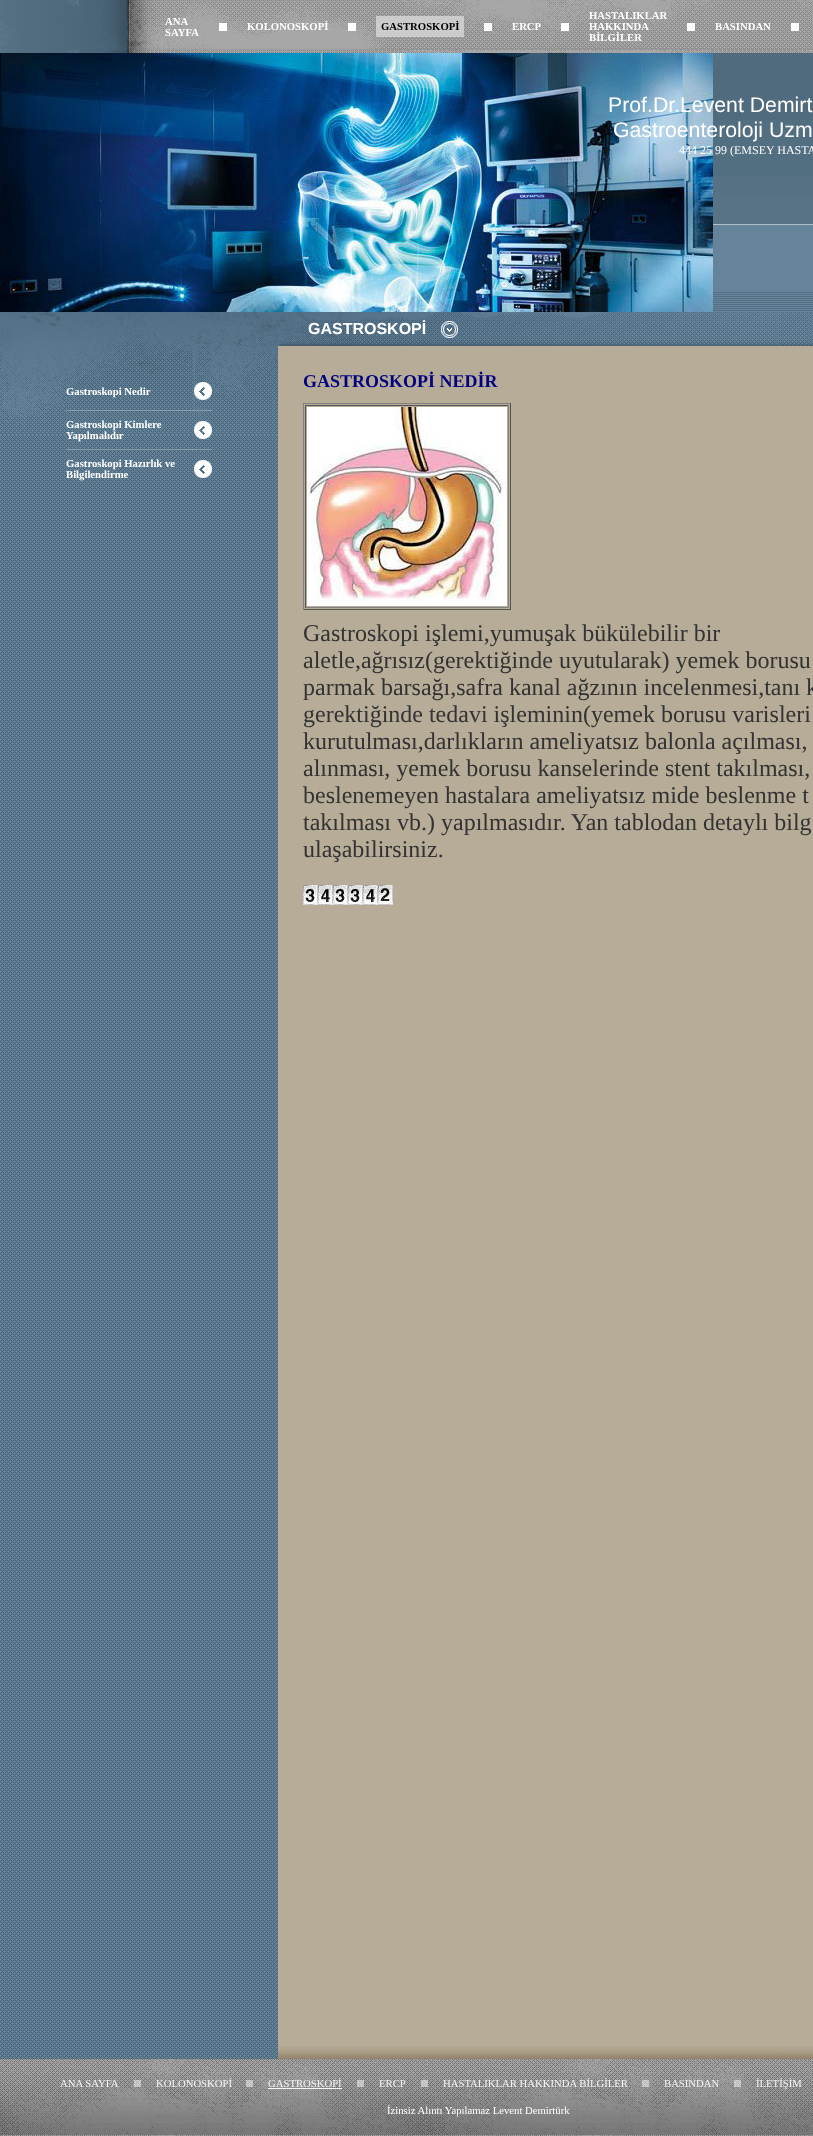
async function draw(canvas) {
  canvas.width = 813;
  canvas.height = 2136;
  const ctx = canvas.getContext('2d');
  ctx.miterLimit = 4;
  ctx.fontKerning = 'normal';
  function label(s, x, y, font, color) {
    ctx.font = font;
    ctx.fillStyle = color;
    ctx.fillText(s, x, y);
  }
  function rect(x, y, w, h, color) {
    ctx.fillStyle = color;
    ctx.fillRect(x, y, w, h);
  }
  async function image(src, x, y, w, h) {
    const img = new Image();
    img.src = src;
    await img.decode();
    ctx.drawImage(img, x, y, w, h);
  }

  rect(0, 0, 813, 2136, '#fff');
  await image('assets/img1.png', 0, 435, 278, 1624);
  await image('assets/img2.png', 724, 0, 89, 53);
  await image('assets/img3.png', 0, 0, 724, 53);
  label('ANA', 165, 25, 'bold 10.7px Liberation Serif', '#fff');
  label('SAYFA', 165, 36, 'bold 10.7px Liberation Serif', '#fff');
  rect(219, 23, 8, 8, '#fff');
  label('KOLONOSKOPİ', 247, 30, 'bold 10.7px Liberation Serif', '#fff');
  rect(348, 23, 8, 8, '#fff');
  rect(376, 16, 88, 21, '#ccc');
  label('GASTROSKOPİ', 381, 30, 'bold 10.7px Liberation Serif', '#000');
  rect(484, 23, 8, 8, '#fff');
  label('ERCP', 512, 30, 'bold 10.7px Liberation Serif', '#fff');
  rect(561, 23, 8, 8, '#fff');
  label('HASTALIKLAR', 589, 19, 'bold 10.7px Liberation Serif', '#fff');
  label('HAKKINDA', 589, 30, 'bold 10.7px Liberation Serif', '#fff');
  label('BİLGİLER', 589, 41, 'bold 10.7px Liberation Serif', '#fff');
  rect(687, 23, 8, 8, '#fff');
  label('BASINDAN', 715, 30, 'bold 10.7px Liberation Serif', '#fff');
  rect(791, 23, 8, 8, '#fff');
  await image('assets/img4.png', 713, 53, 100, 259);
  await image('assets/img5.png', 0, 53, 713, 259);
  label('Prof.Dr.Levent Demirt', 608, 112, '21.25px Liberation Sans', '#fff');
  label('Gastroenteroloji Uzm', 613, 137, '21.25px Liberation Sans', '#fff');
  label('444 25 99 (EMSEY HASTA', 679, 154, '12px Liberation Serif', '#fff');
  await image('assets/img6.png', 0, 312, 278, 123);
  label('Gastroskopi Nedir', 66, 395, 'bold 10.7px Liberation Serif', '#fff');
  await image('assets/img7.png', 194, 382, 18, 18);
  await image('assets/img8.png', 66, 410, 146, 1);
  label('Gastroskopi Kimlere', 66, 428, 'bold 10.7px Liberation Serif', '#fff');
  label('Yapılmalıdır', 66, 439, 'bold 10.7px Liberation Serif', '#fff');
  await image('assets/img9.png', 194, 421, 18, 18);
  await image('assets/img8.png', 66, 449, 146, 1);
  label('Gastroskopi Hazırlık ve', 66, 467, 'bold 10.7px Liberation Serif', '#fff');
  label('Bilgilendirme', 66, 478, 'bold 10.7px Liberation Serif', '#fff');
  await image('assets/img10.png', 194, 460, 18, 18);
  rect(278, 346, 535, 1700, '#b6ac97');
  await image('assets/img11.png', 278, 2046, 535, 13);
  await image('assets/img12.png', 780, 312, 33, 34);
  await image('assets/img13.png', 278, 312, 502, 34);
  label('GASTROSKOPİ', 308, 334, 'bold 16px Liberation Sans', '#fff');
  await image('assets/img14.png', 441, 321, 17, 17);
  label('GASTROSKOPİ NEDİR', 303, 387, 'bold 18px Liberation Serif', '#000080');
  rect(303, 403, 208, 1, '#808080');
  rect(510, 403, 1, 207, '#555');
  rect(303, 609, 208, 1, '#555');
  rect(303, 403, 1, 207, '#808080');
  rect(305, 405, 204, 1, '#555');
  rect(508, 405, 1, 203, '#808080');
  rect(305, 607, 204, 1, '#808080');
  rect(305, 405, 1, 203, '#555');
  await image('assets/img15.png', 307, 407, 200, 199);
  label('Gastroskopi işlemi,yumuşak bükülebilir bir', 303, 641, '24px Liberation Serif', '#333');
  label('aletle,ağrısız(gerektiğinde uyutularak) yemek borusu', 303, 668, '24px Liberation Serif', '#333');
  label('parmak barsağı,safra kanal ağzının incelenmesi,tanı k', 303, 695, '24px Liberation Serif', '#333');
  label('gerektiğinde tedavi işleminin(yemek borusu varisleri', 303, 722, '24px Liberation Serif', '#333');
  label('kurutulması,darlıkların ameliyatsız balonla açılması,', 303, 749, '24px Liberation Serif', '#333');
  label('alınması, yemek borusu kanselerinde stent takılması,', 303, 776, '24px Liberation Serif', '#333');
  label('beslenemeyen hastalara ameliyatsız mide beslenme t', 303, 803, '24px Liberation Serif', '#333');
  label('takılması vb.) yapılmasıdır. Yan tablodan detaylı bilg', 303, 830, '24px Liberation Serif', '#333');
  label('ulaşabilirsiniz.', 303, 857, '24px Liberation Serif', '#333');
  await image('assets/img16.png', 303, 885, 90, 20);
  await image('assets/img17.png', 0, 2059, 813, 77);
  label('ANA SAYFA', 60, 2087, '10.7px Liberation Serif', '#f6f6f6');
  await image('assets/img18.png', 134, 2080, 7, 7);
  label('KOLONOSKOPİ', 156, 2087, '10.7px Liberation Serif', '#f6f6f6');
  await image('assets/img18.png', 246, 2080, 7, 7);
  label('GASTROSKOPİ', 268, 2087, '10.7px Liberation Serif', '#f6f6f6');
  rect(268, 2088, 74, 1, '#f6f6f6');
  await image('assets/img18.png', 357, 2080, 7, 7);
  label('ERCP', 379, 2087, '10.7px Liberation Serif', '#f6f6f6');
  await image('assets/img18.png', 421, 2080, 7, 7);
  label('HASTALIKLAR HAKKINDA BİLGİLER', 443, 2087, '10.7px Liberation Serif', '#f6f6f6');
  await image('assets/img18.png', 642, 2080, 7, 7);
  label('BASINDAN', 664, 2087, '10.7px Liberation Serif', '#f6f6f6');
  await image('assets/img18.png', 734, 2080, 7, 7);
  label('İLETİŞİM', 756, 2087, '10.7px Liberation Serif', '#f6f6f6');
  label('İzinsiz Alıntı Yapılamaz Levent Demirtürk', 387, 2114, '10.7px Liberation Serif', '#fff');
}

draw(document.querySelector('canvas'));
